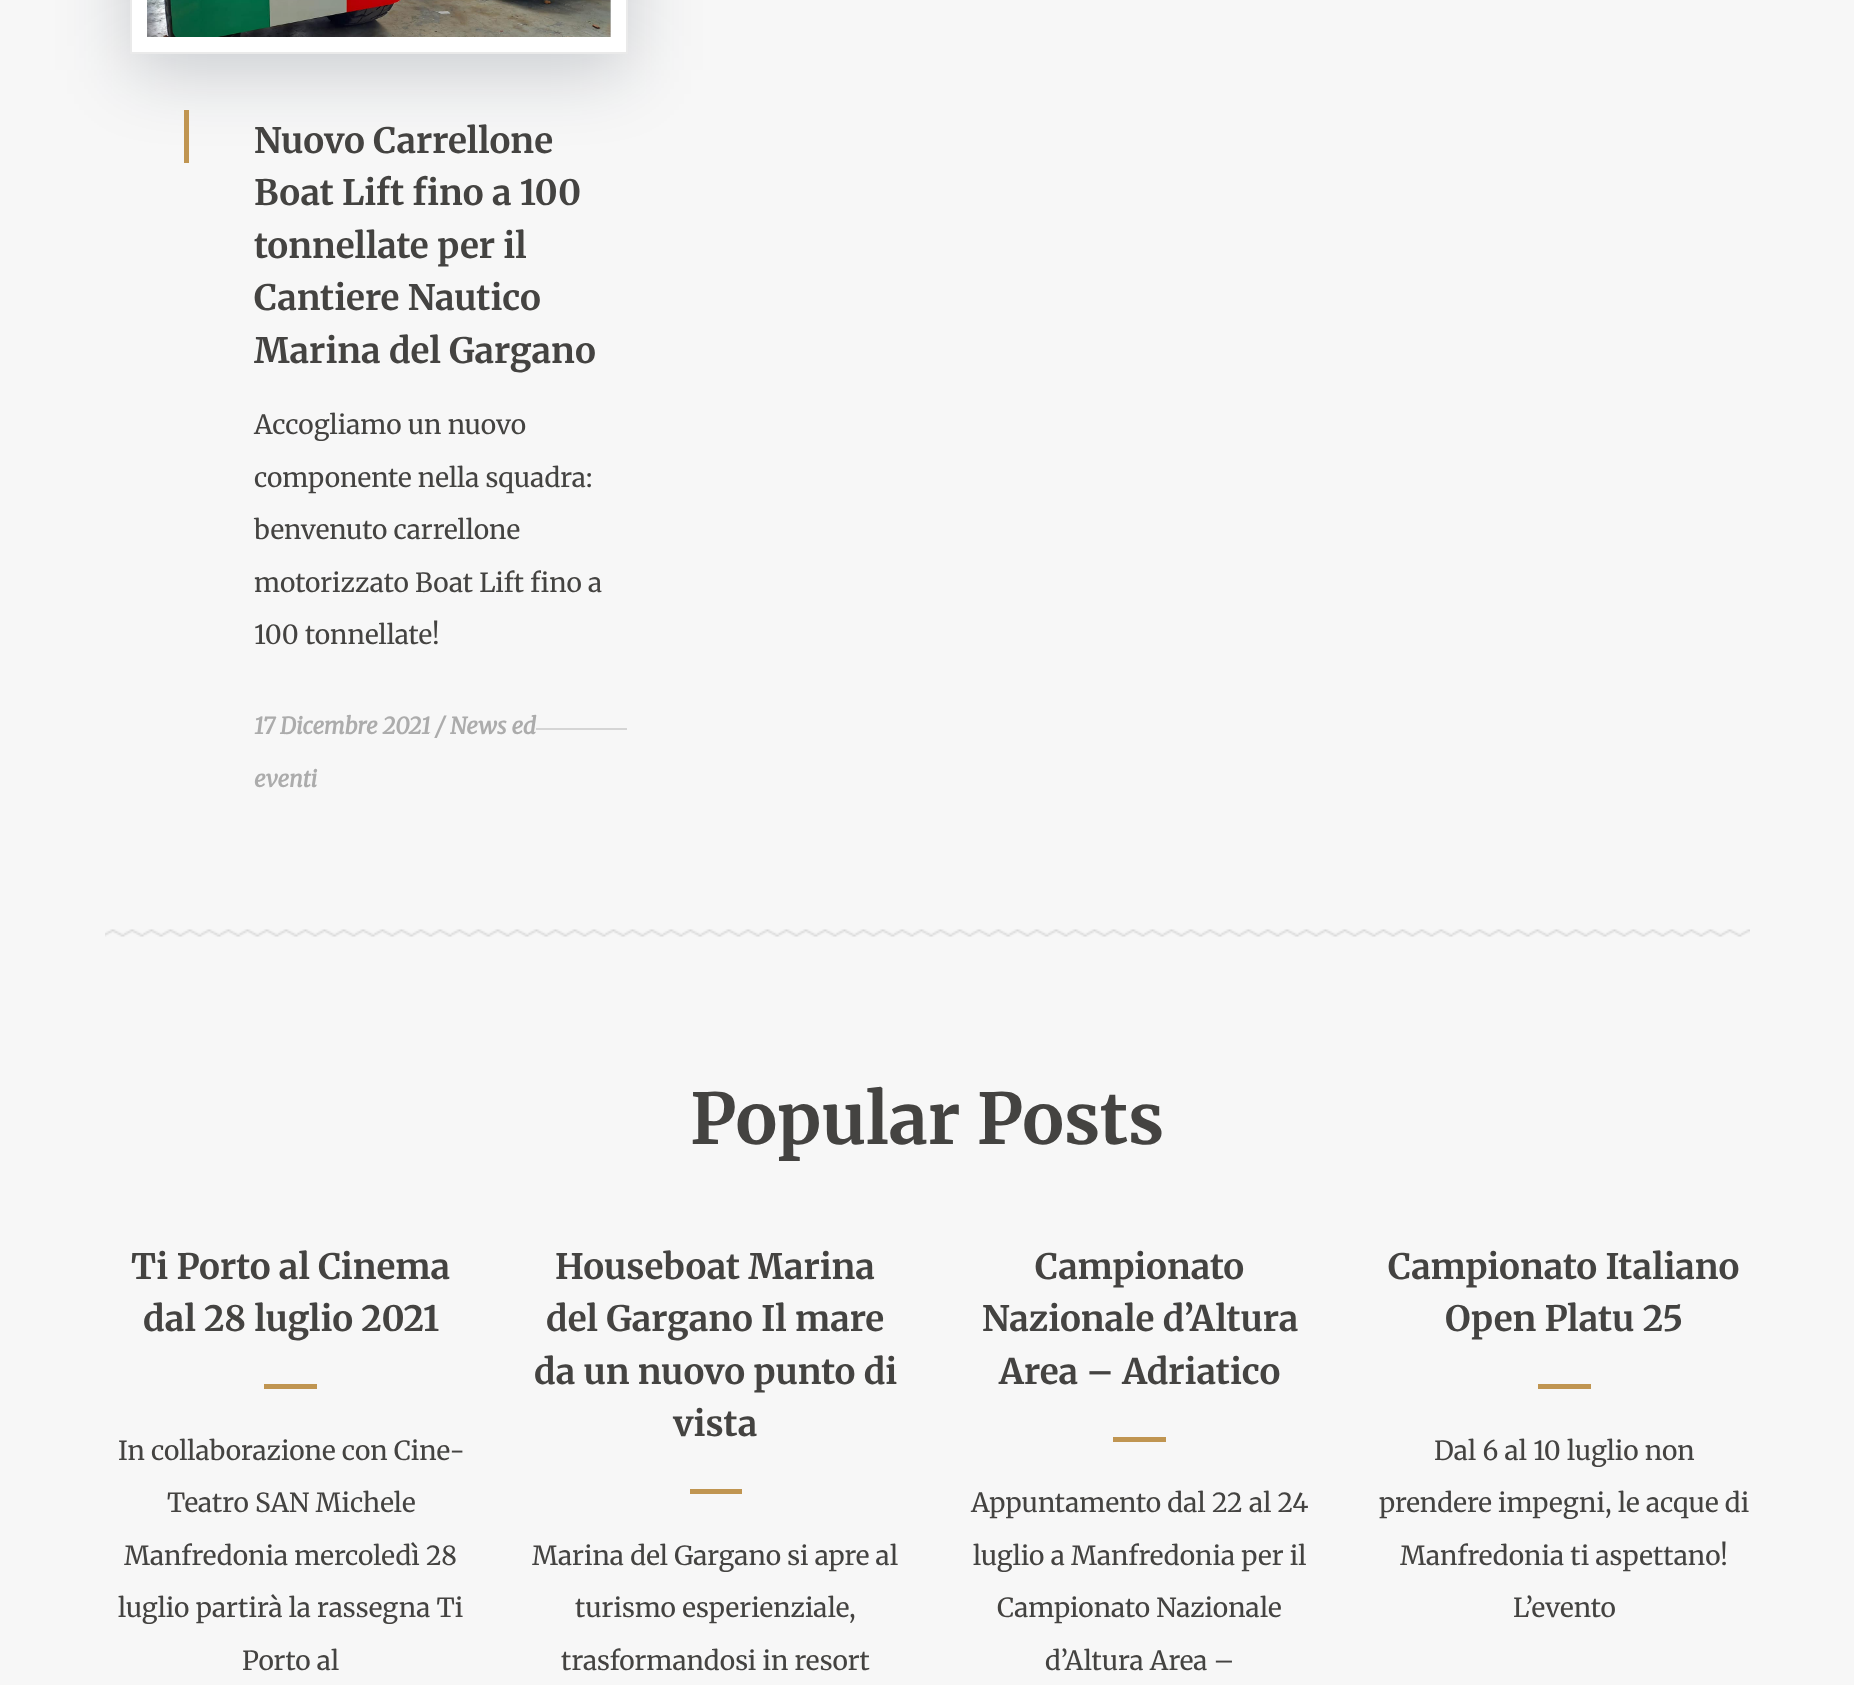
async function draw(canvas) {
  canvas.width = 1854;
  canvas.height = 1685;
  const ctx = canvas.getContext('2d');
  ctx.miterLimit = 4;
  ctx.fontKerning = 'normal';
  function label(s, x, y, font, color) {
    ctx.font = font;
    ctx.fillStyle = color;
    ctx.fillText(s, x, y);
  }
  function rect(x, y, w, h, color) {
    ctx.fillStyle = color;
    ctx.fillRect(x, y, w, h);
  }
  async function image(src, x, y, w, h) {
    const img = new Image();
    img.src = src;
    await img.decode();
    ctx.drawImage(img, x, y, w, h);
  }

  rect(0, 0, 1854, 1685, '#f7f7f7');
  ctx.fillStyle = '#091a2c33';
  ctx.filter = 'blur(36px)';
  ctx.beginPath();
  ctx.rect(131, -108, 496, 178);
  ctx.fill();
  ctx.filter = 'none';
  ctx.strokeStyle = '#fff';
  ctx.lineWidth = 16;
  ctx.strokeRect(139, -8, 480, 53);
  await image('assets/img1.png', 147, 0, 464, 37);
  ctx.strokeStyle = '#eaeaea';
  ctx.lineWidth = 2;
  ctx.strokeRect(131, -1, 496, 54);
  rect(184, 110, 5, 53, '#c09551');
  label('Nuovo Carrellone', 254, 153, 'bold 35px Merriweather', '#444341');
  label('Boat Lift fino a 100', 254, 205, 'bold 35px Merriweather', '#444341');
  label('tonnellate per il', 254, 258, 'bold 35px Merriweather', '#444341');
  label('Cantiere Nautico', 254, 310, 'bold 35px Merriweather', '#444341');
  label('Marina del Gargano', 254, 363, 'bold 35px Merriweather', '#444341');
  label('Accogliamo un nuovo', 254, 434, '26.25px Merriweather', '#444341');
  label('componente nella squadra:', 254, 487, '26.25px Merriweather', '#444341');
  label('benvenuto carrellone', 254, 539, '26.25px Merriweather', '#444341');
  label('motorizzato Boat Lift fino a', 254, 592, '26.25px Merriweather', '#444341');
  label('100 tonnellate!', 254, 644, '26.25px Merriweather', '#444341');
  label('17 Dicembre 2021 / News ed', 254, 734, 'italic bold 22.75px Merriweather', '#acacac');
  rect(536, 728, 91, 2, '#d5d5d5');
  label('eventi', 254, 787, 'italic bold 22.75px Merriweather', '#acacac');
  rect(429, 733, 1, 1, '#f7f7f7');
  await image('assets/img2.png', 105, 929, 1645, 8);
  label('Popular Posts', 690, 1144, 'bold 70px Merriweather', '#444341');
  label('Ti Porto al Cinema', 131, 1279, 'bold 35px Merriweather', '#444341');
  label('dal 28 luglio 2021', 143, 1331, 'bold 35px Merriweather', '#444341');
  rect(264, 1384, 53, 5, '#c09551');
  label('In collaborazione con Cine-', 118, 1460, '26.25px Merriweather', '#444341');
  label('Teatro SAN Michele', 167, 1512, '26.25px Merriweather', '#444341');
  label('Manfredonia mercoledì 28', 124, 1565, '26.25px Merriweather', '#444341');
  label('luglio partirà la rassegna Ti', 118, 1617, '26.25px Merriweather', '#444341');
  label('Porto al', 242, 1670, '26.25px Merriweather', '#444341');
  label('Houseboat Marina', 555, 1279, 'bold 35px Merriweather', '#444341');
  label('del Gargano Il mare', 546, 1331, 'bold 35px Merriweather', '#444341');
  label('da un nuovo punto di', 534, 1384, 'bold 35px Merriweather', '#444341');
  label('vista', 673, 1436, 'bold 35px Merriweather', '#444341');
  rect(690, 1489, 52, 5, '#c09551');
  label('Marina del Gargano si apre al', 532, 1565, '26.25px Merriweather', '#444341');
  label('turismo esperienziale,', 575, 1617, '26.25px Merriweather', '#444341');
  label('trasformandosi in resort', 561, 1670, '26.25px Merriweather', '#444341');
  label('Campionato', 1035, 1279, 'bold 35px Merriweather', '#444341');
  label('Nazionale d’Altura', 982, 1331, 'bold 35px Merriweather', '#444341');
  label('Area – Adriatico', 999, 1384, 'bold 35px Merriweather', '#444341');
  rect(1113, 1437, 53, 5, '#c09551');
  label('Appuntamento dal 22 al 24', 971, 1512, '26.25px Merriweather', '#444341');
  label('luglio a Manfredonia per il', 973, 1565, '26.25px Merriweather', '#444341');
  label('Campionato Nazionale', 997, 1617, '26.25px Merriweather', '#444341');
  label('d’Altura Area –', 1045, 1670, '26.25px Merriweather', '#444341');
  label('Campionato Italiano', 1388, 1279, 'bold 35px Merriweather', '#444341');
  label('Open Platu 25', 1445, 1331, 'bold 35px Merriweather', '#444341');
  rect(1538, 1384, 53, 5, '#c09551');
  label('Dal 6 al 10 luglio non', 1434, 1460, '26.25px Merriweather', '#444341');
  label('prendere impegni, le acque di', 1379, 1512, '26.25px Merriweather', '#444341');
  label('Manfredonia ti aspettano!', 1400, 1565, '26.25px Merriweather', '#444341');
  label('L’evento', 1513, 1617, '26.25px Merriweather', '#444341');
}

draw(document.querySelector('canvas'));
